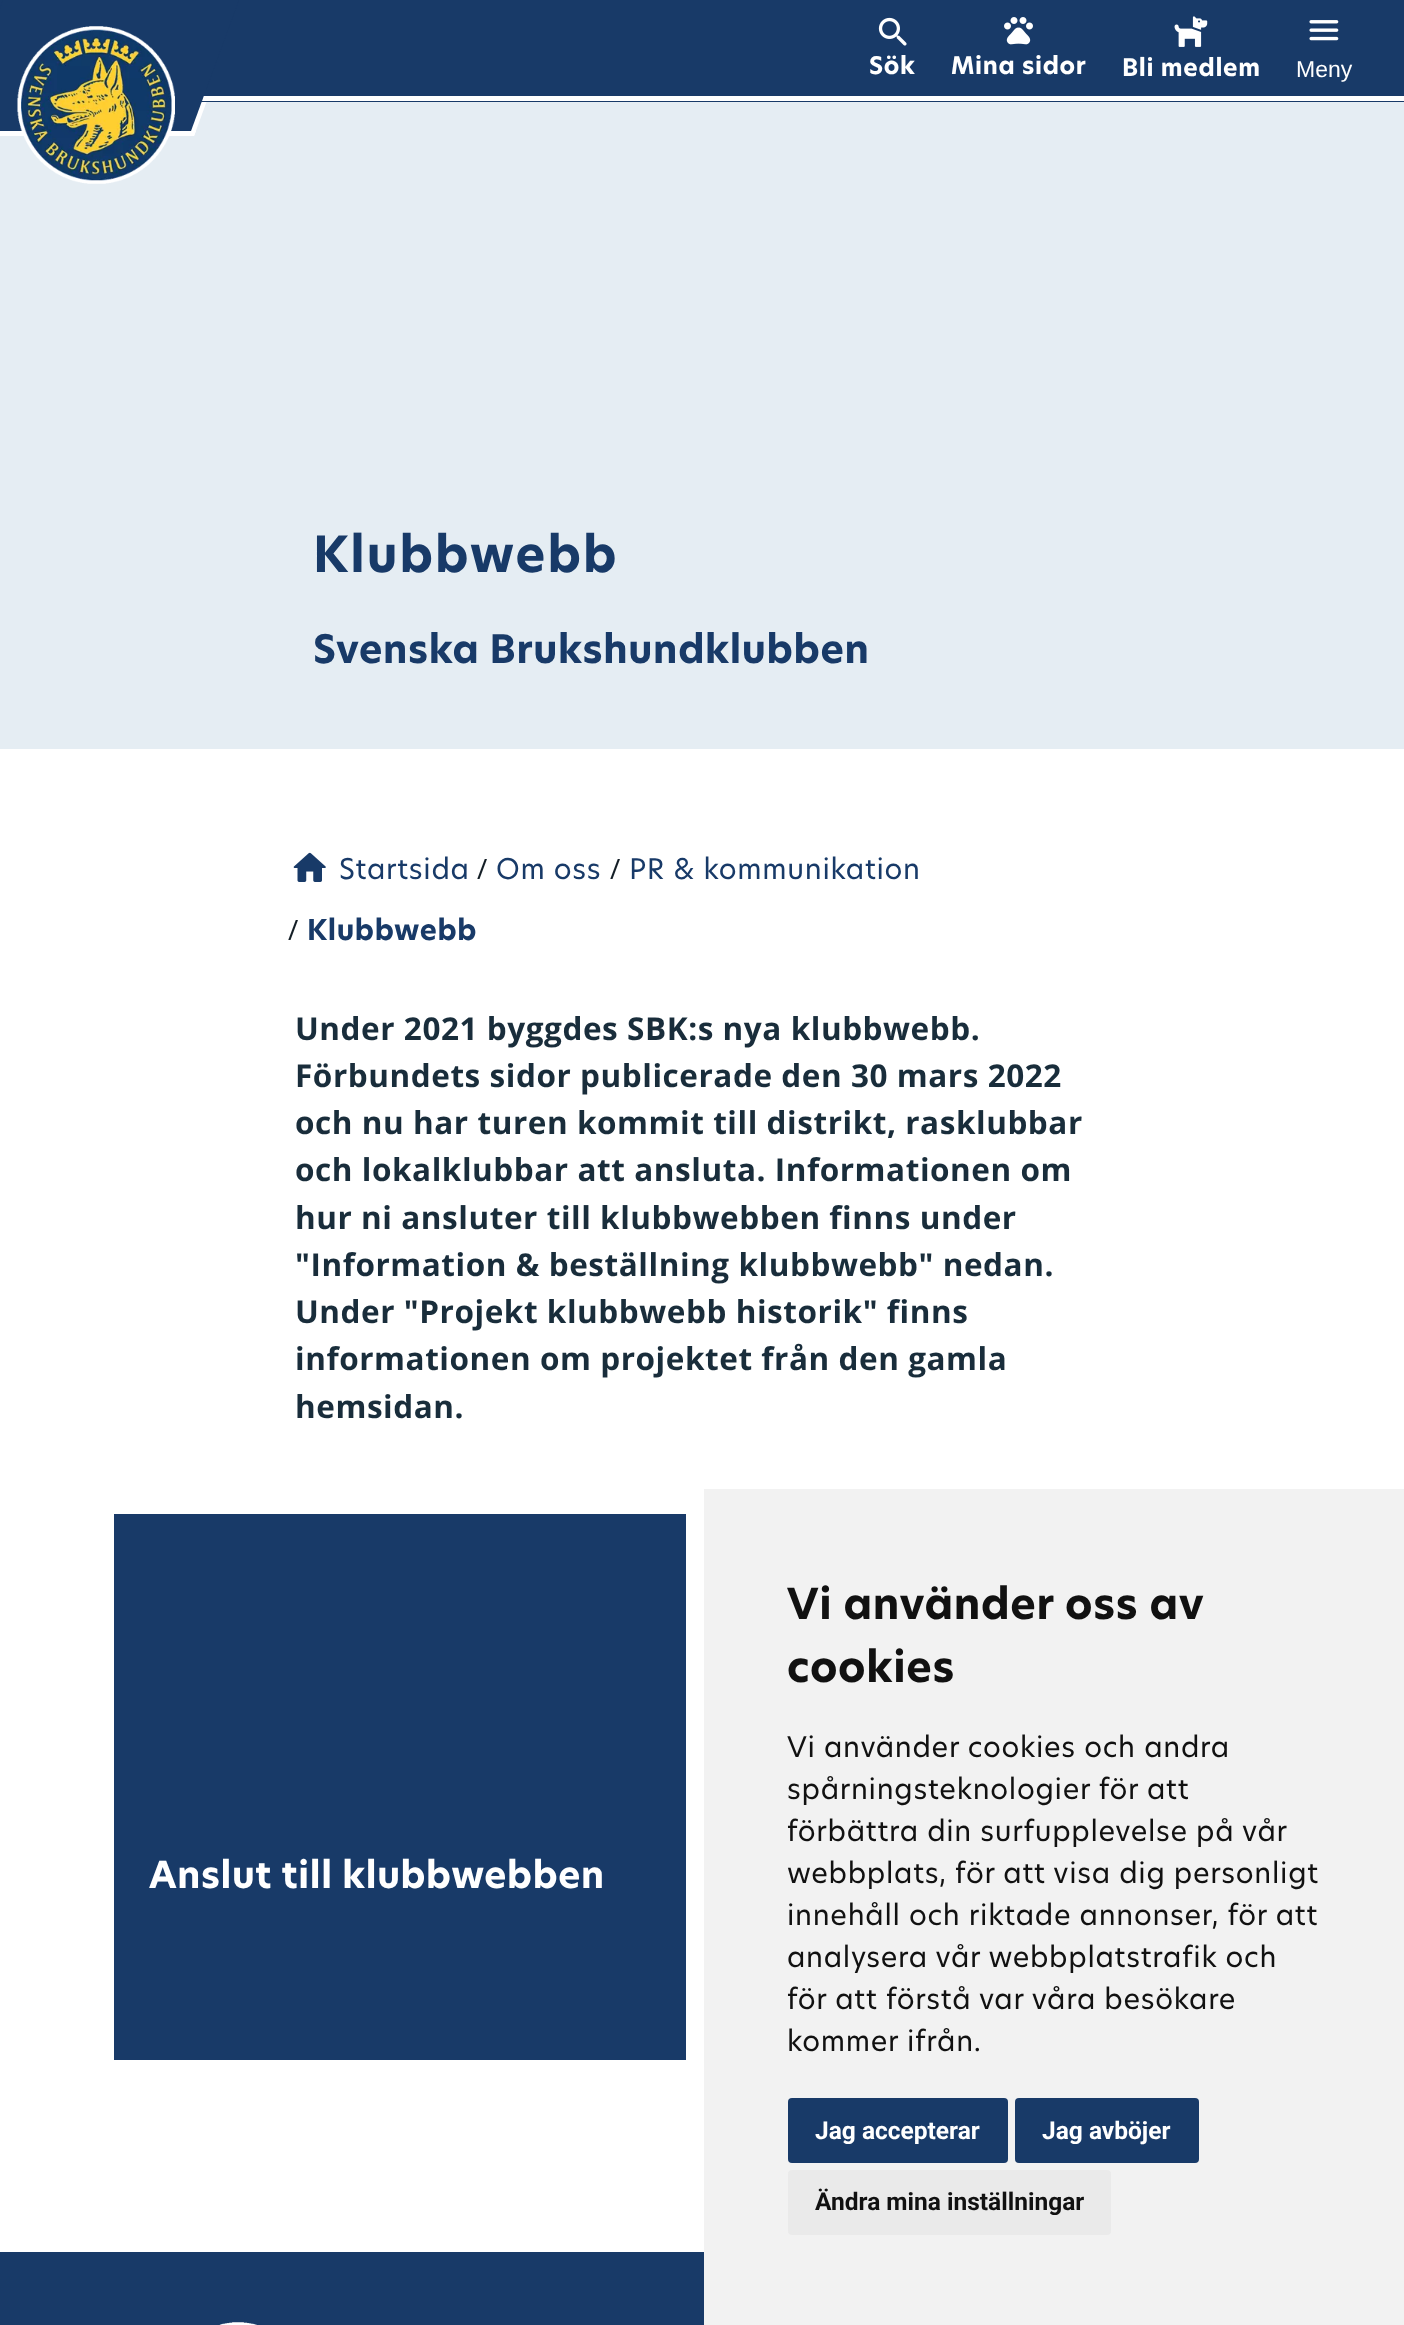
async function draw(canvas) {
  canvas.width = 1404;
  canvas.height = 2325;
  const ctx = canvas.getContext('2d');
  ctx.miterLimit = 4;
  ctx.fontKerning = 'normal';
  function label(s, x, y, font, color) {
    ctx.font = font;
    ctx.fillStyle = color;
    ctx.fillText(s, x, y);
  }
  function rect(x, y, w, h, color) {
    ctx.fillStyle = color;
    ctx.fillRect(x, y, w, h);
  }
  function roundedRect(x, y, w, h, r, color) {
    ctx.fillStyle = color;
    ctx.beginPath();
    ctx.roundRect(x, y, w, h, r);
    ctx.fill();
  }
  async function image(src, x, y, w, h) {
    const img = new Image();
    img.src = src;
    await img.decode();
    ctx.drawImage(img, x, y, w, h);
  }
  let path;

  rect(0, 0, 1404, 2325, '#fff');
  rect(0, 102, 1404, 647, '#e5edf3');
  ctx.fillStyle = '#fff';
  path = new Path2D('M237 0H244L194 136H187Z');
  ctx.fill(path);
  path = new Path2D('M-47 131H196L194 136H-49Z');
  ctx.fill(path);
  rect(0, 0, 1404, 102, '#183a68');
  rect(202, 96, 1202, 5, '#fff');
  ctx.fillStyle = '#183a68';
  path = new Path2D('M3 0H239L191 131H-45Z');
  ctx.fill(path);
  await image('assets/img1.png', 17, 26, 158, 158);
  await image('assets/img2.png', 21, 29, 151, 152);
  await image('assets/img3.png', 878, 17, 29, 29);
  ctx.letterSpacing = '0.7px';
  label('Sök', 869, 74, 'bold 23.75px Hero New', '#fff');
  await image('assets/img4.png', 1004, 17, 29, 28);
  label('Mina sidor', 951, 74, 'bold 23.75px Hero New', '#fff');
  await image('assets/img5.png', 1174, 16, 34, 31);
  label('Bli medlem', 1122, 76, 'bold 23.75px Hero New', '#fff');
  await image('assets/img6.png', 1309, 20, 30, 21);
  ctx.letterSpacing = '0px';
  label('Meny', 1296, 77, '23px Liberation Sans', '#fff');
  ctx.letterSpacing = '2.1px';
  label('Klubbwebb', 313, 572, 'bold 49px Hero New', '#183a68');
  ctx.letterSpacing = '0.7px';
  label('Svenska Brukshundklubben', 313, 663, 'bold 38.5px Hero New', '#183a68');
  await image('assets/img7.png', 293, 852, 33, 30);
  label('Startsida', 339, 879, '28px Hero New', '#183a68');
  label('/', 477, 879, '28px Open Sans', '#141e26');
  label('Om oss', 496, 879, '28px Hero New', '#183a68');
  label('/', 610, 879, '28px Open Sans', '#141e26');
  label('PR & kommunikation', 629, 879, '28px Hero New', '#183a68');
  label('/', 288, 940, '28px Open Sans', '#141e26');
  label('Klubbwebb', 307, 940, 'bold 28px Hero New', '#183a68');
  ctx.letterSpacing = '0.55px';
  label('Under 2021 byggdes SBK:s nya klubbwebb.', 295, 1040, 'bold 31.5px Open Sans', '#192d3b');
  label('Förbundets sidor publicerade den 30 mars 2022', 295, 1087, 'bold 31.5px Open Sans', '#192d3b');
  label('och nu har turen kommit till distrikt, rasklubbar', 295, 1134, 'bold 31.5px Open Sans', '#192d3b');
  label('och lokalklubbar att ansluta. Informationen om', 295, 1181, 'bold 31.5px Open Sans', '#192d3b');
  label('hur ni ansluter till klubbwebben finns under', 295, 1229, 'bold 31.5px Open Sans', '#192d3b');
  label('"Information & beställning klubbwebb" nedan.', 295, 1276, 'bold 31.5px Open Sans', '#192d3b');
  label('Under "Projekt klubbwebb historik" finns', 295, 1323, 'bold 31.5px Open Sans', '#192d3b');
  label('informationen om projektet från den gamla', 295, 1370, 'bold 31.5px Open Sans', '#192d3b');
  label('hemsidan.', 295, 1418, 'bold 31.5px Open Sans', '#192d3b');
  rect(114, 1514, 572, 546, '#183a68');
  ctx.letterSpacing = '0.7px';
  label('Anslut till klubbwebben', 149, 1888, 'bold 36.4px Hero New', '#fff');
  rect(704, 1489, 700, 836, '#f2f2f2');
  label('Vi använder oss av', 787, 1619, 'bold 42px Hero New', '#111');
  label('cookies', 787, 1682, 'bold 42px Hero New', '#111');
  label('Vi använder cookies och andra', 787, 1757, '28px Hero New', '#111');
  label('spårningsteknologier för att', 787, 1799, '28px Hero New', '#111');
  label('förbättra din surfupplevelse på vår', 787, 1841, '28px Hero New', '#111');
  label('webbplats, för att visa dig personligt', 787, 1883, '28px Hero New', '#111');
  label('innehåll och riktade annonser, för att', 787, 1925, '28px Hero New', '#111');
  label('analysera vår webbplatstrafik och', 787, 1967, '28px Hero New', '#111');
  label('för att förstå var våra besökare', 787, 2009, '28px Hero New', '#111');
  label('kommer ifrån.', 787, 2051, '28px Hero New', '#111');
  roundedRect(788, 2098, 220, 65, 4, '#183a68');
  ctx.letterSpacing = '0px';
  label('Jag accepterar', 815, 2139, 'bold 24.5px Roboto', '#fff');
  roundedRect(1015, 2098, 184, 65, 4, '#183a68');
  label('Jag avböjer', 1042, 2139, 'bold 24.5px Roboto', '#fff');
  roundedRect(788, 2170, 323, 65, 4, '#eaeaea');
  label('Ändra mina inställningar', 815, 2210, 'bold 24.5px Roboto', '#111');
  rect(0, 2252, 704, 73, '#183a68');
  await image('assets/img8.png', 219, 2322, 38, 3);
}

draw(document.querySelector('canvas'));
